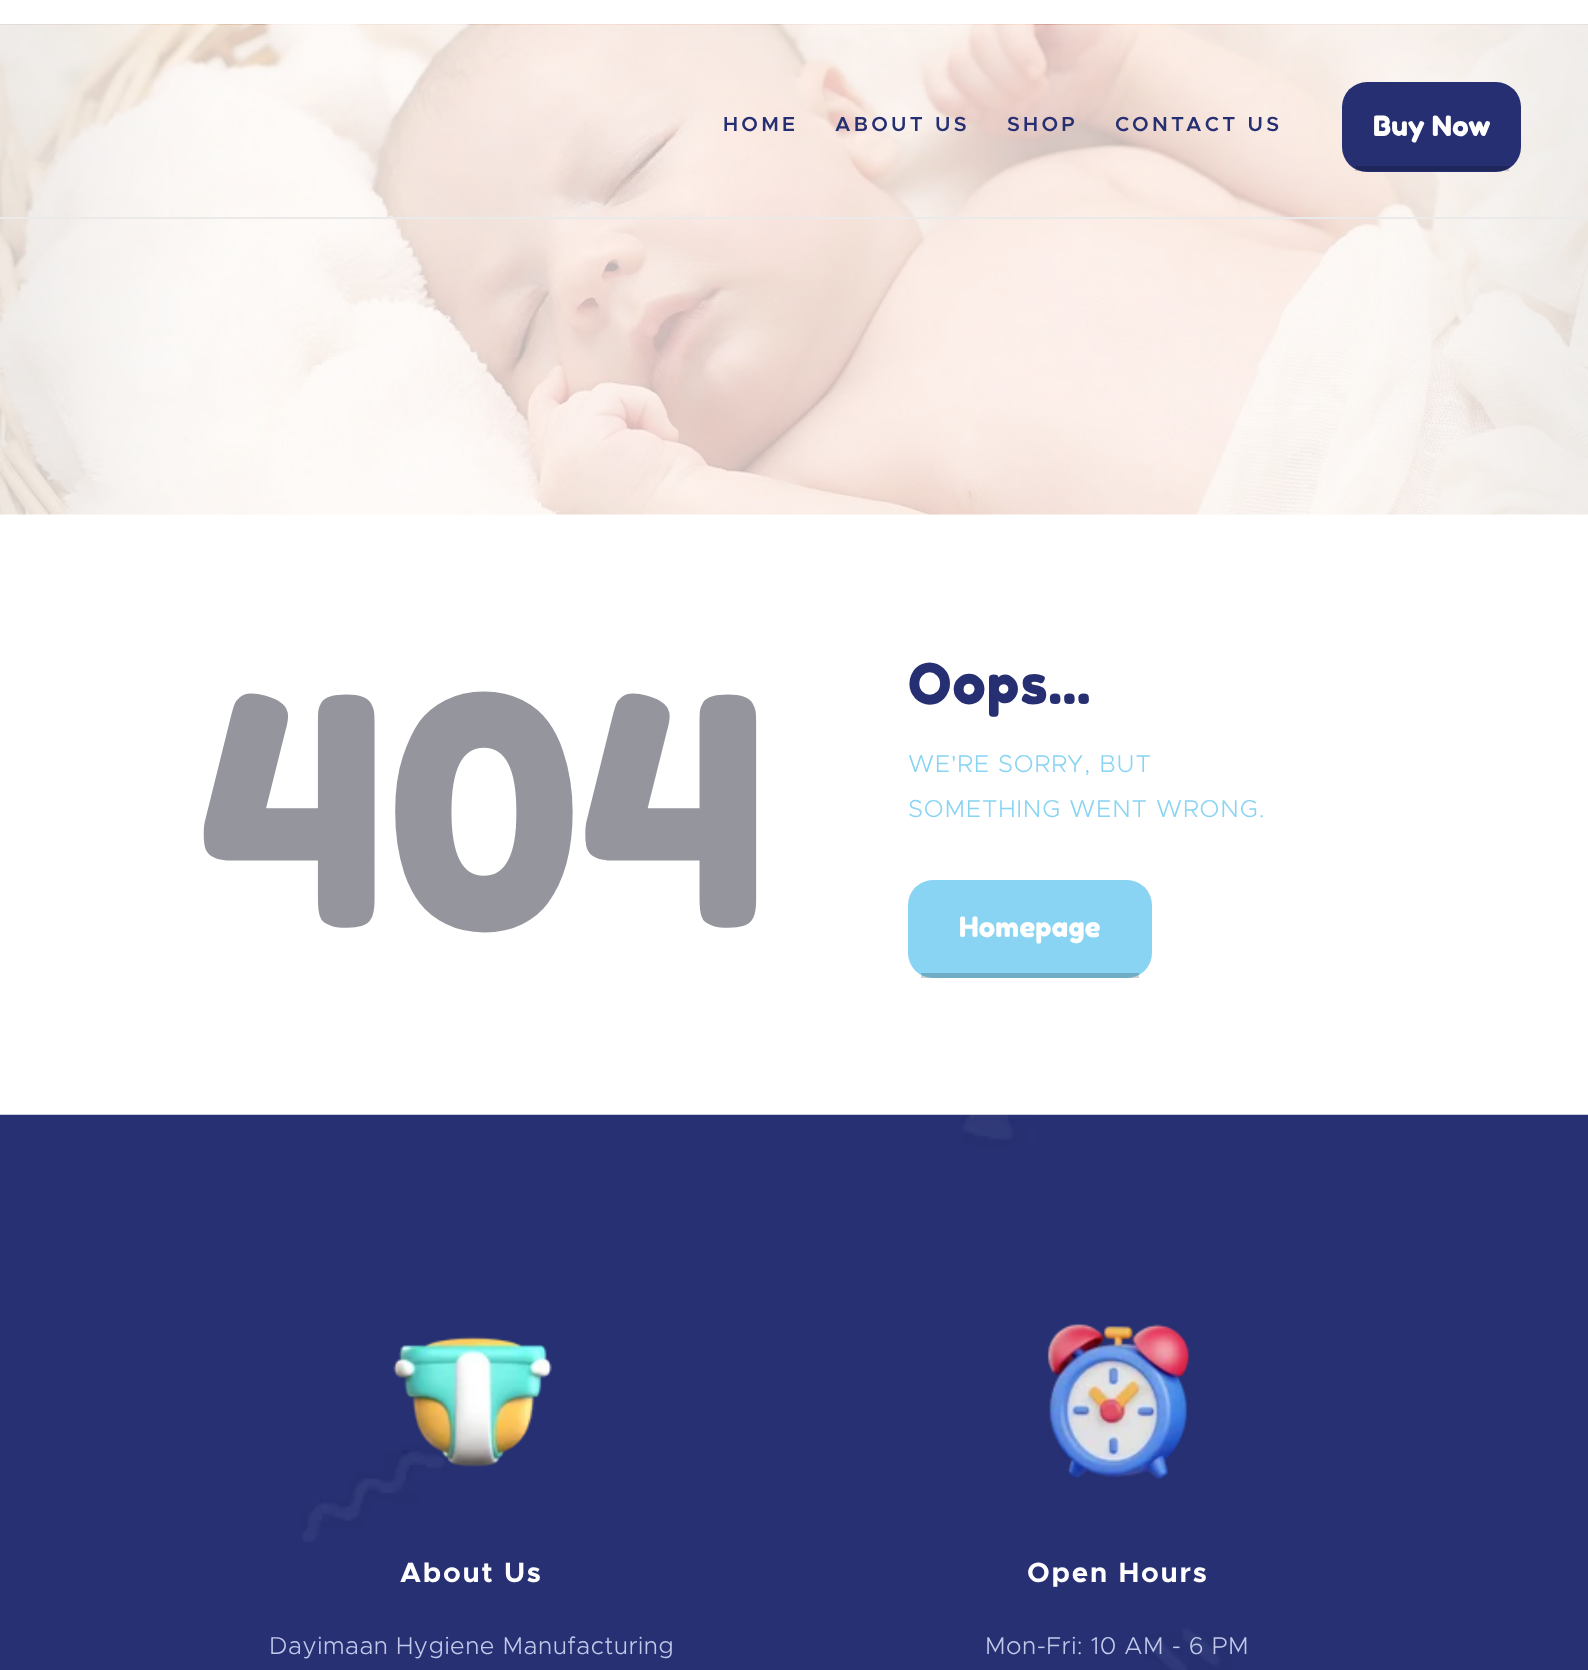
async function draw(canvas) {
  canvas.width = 1588;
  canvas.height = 1670;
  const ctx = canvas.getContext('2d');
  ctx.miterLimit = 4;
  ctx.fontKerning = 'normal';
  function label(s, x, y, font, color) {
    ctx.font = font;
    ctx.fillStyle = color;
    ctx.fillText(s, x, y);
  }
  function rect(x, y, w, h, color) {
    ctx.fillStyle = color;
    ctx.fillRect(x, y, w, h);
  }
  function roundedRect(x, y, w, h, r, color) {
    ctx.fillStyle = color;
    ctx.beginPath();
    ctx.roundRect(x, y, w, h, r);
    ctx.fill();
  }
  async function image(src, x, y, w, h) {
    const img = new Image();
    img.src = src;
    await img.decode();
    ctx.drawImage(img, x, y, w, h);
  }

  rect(0, 0, 1588, 1670, '#fff');
  await image('assets/img1.png', 0, 24, 1588, 491);
  rect(0, 217, 1588, 2, '#eaeaea');
  ctx.letterSpacing = '3.25px';
  label('HOME', 723, 131, '600 20.5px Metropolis', '#262f71');
  label('ABOUT US', 835, 131, '600 20.5px Metropolis', '#262f71');
  label('SHOP', 1007, 131, '600 20.5px Metropolis', '#262f71');
  label('CONTACT US', 1115, 131, '600 20.5px Metropolis', '#262f71');
  roundedRect(1342, 82, 179, 90, 25, '#262f71');
  rect(1355, 166, 154, 5, '#0000002e');
  ctx.letterSpacing = '0px';
  label('Buy Now', 1373, 136, '28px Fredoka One', '#fff');
  label('404', 199, 928, '318px Fredoka One', '#95959d');
  ctx.letterSpacing = '0.9px';
  label('Oops...', 908, 704, '56px Fredoka One', '#262f71');
  label('WE\'RE SORRY, BUT', 908, 772, '300 24.5px Metropolis', '#88d4f2');
  label('SOMETHING WENT WRONG.', 908, 817, '300 24.5px Metropolis', '#88d4f2');
  roundedRect(908, 880, 244, 98, 25, '#88d4f2');
  rect(921, 973, 218, 5, '#0000002e');
  ctx.letterSpacing = '0px';
  label('Homepage', 959, 937, '28px Fredoka One', '#fff');
  await image('assets/img2.png', 0, 1114, 1588, 556);
  await image('assets/img3.png', 393, 1336, 159, 131);
  ctx.letterSpacing = '1.75px';
  label('About Us', 400, 1582, 'bold 28px Metropolis', '#fff');
  ctx.letterSpacing = '0.5px';
  label('Dayimaan Hygiene Manufacturing', 269, 1654, '300 24.5px Metropolis', '#c1c8e9');
  await image('assets/img4.png', 1047, 1323, 143, 157);
  ctx.letterSpacing = '1.75px';
  label('Open Hours', 1027, 1582, 'bold 28px Metropolis', '#fff');
  ctx.letterSpacing = '0.5px';
  label('Mon-Fri: 10 AM - 6 PM', 985, 1654, '300 24.5px Metropolis', '#c1c8e9');
}

draw(document.querySelector('canvas'));
